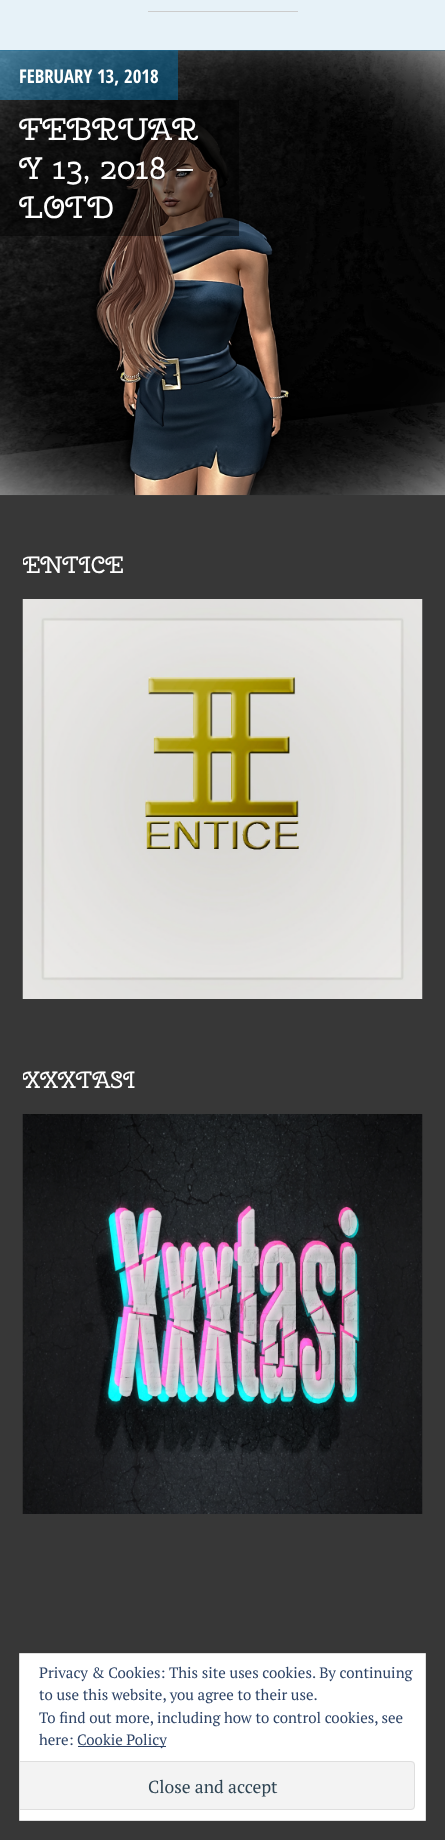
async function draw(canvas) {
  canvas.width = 445;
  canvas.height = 1840;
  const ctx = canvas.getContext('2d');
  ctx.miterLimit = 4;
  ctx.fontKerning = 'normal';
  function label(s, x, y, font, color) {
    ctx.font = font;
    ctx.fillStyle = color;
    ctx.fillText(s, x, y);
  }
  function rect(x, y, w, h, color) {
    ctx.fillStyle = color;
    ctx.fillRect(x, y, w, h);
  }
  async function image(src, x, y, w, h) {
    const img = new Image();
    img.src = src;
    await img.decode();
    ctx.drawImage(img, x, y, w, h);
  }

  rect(0, 0, 445, 1840, '#e7f2f8');
  rect(148, 11, 150, 1, '#ccc');
  rect(0, 50, 445, 445, '#37718f');
  rect(0, 495, 445, 1345, '#373737');
  await image('assets/img1.png', 0, 50, 445, 446);
  rect(0, 50, 178, 50, '#0570a880');
  label('FEBRUARY 13, 2018', 19, 83, 'bold 18.75px Open Sans Condensed', '#fff');
  rect(0, 100, 239, 136, '#00000080');
  label('FEBRUAR', 19, 140, '31.25px Cherry Swash', '#fff');
  label('Y 13, 2018 –', 19, 179, '31.25px Cherry Swash', '#fff');
  label('LOTD', 19, 218, '31.25px Cherry Swash', '#fff');
  ctx.save();
  ctx.beginPath();
  ctx.rect(23, 533, 400, 477);
  ctx.clip();
  label('ENTICE', 22, 573, '23.5px Cherry Swash', '#fff');
  ctx.restore();
  await image('assets/img2.png', 22, 599, 401, 400);
  ctx.save();
  ctx.beginPath();
  ctx.rect(23, 1048, 400, 477);
  ctx.clip();
  label('XXXTASI', 22, 1088, '23.5px Cherry Swash', '#fff');
  ctx.restore();
  await image('assets/img3.png', 22, 1114, 401, 400);
  ctx.beginPath();
  ctx.rect(19.5, 1653.5, 406, 167);
  ctx.fill();
  ctx.strokeStyle = '#dedede';
  ctx.stroke();
  label('Privacy & Cookies: This site uses cookies. By continuing', 39, 1678, '15px PT Serif', '#2e4467');
  label('to use this website, you agree to their use.', 39, 1700, '15px PT Serif', '#2e4467');
  label('To find out more, including how to control cookies, see', 39, 1723, '15px PT Serif', '#2e4467');
  label('here:', 39, 1745, '15px PT Serif', '#2e4467');
  rect(78, 1746, 88, 1, '#2e4467');
  label('Cookie Policy', 77, 1745, '15px PT Serif', '#2e4467');
  ctx.fillStyle = '#f3f3f3';
  ctx.beginPath();
  ctx.roundRect(20, 1761, 395, 49, [0, 4, 4, 0]);
  ctx.fill();
  ctx.save();
  ctx.beginPath();
  ctx.rect(20, 1654, 405, 166);
  ctx.clip();
  ctx.beginPath();
  ctx.roundRect(10.5, 1761.5, 404, 48, 3.5);
  ctx.stroke();
  ctx.restore();
  label('Close and accept', 148, 1793, '17.5px PT Serif', '#2e4453');
}

draw(document.querySelector('canvas'));
